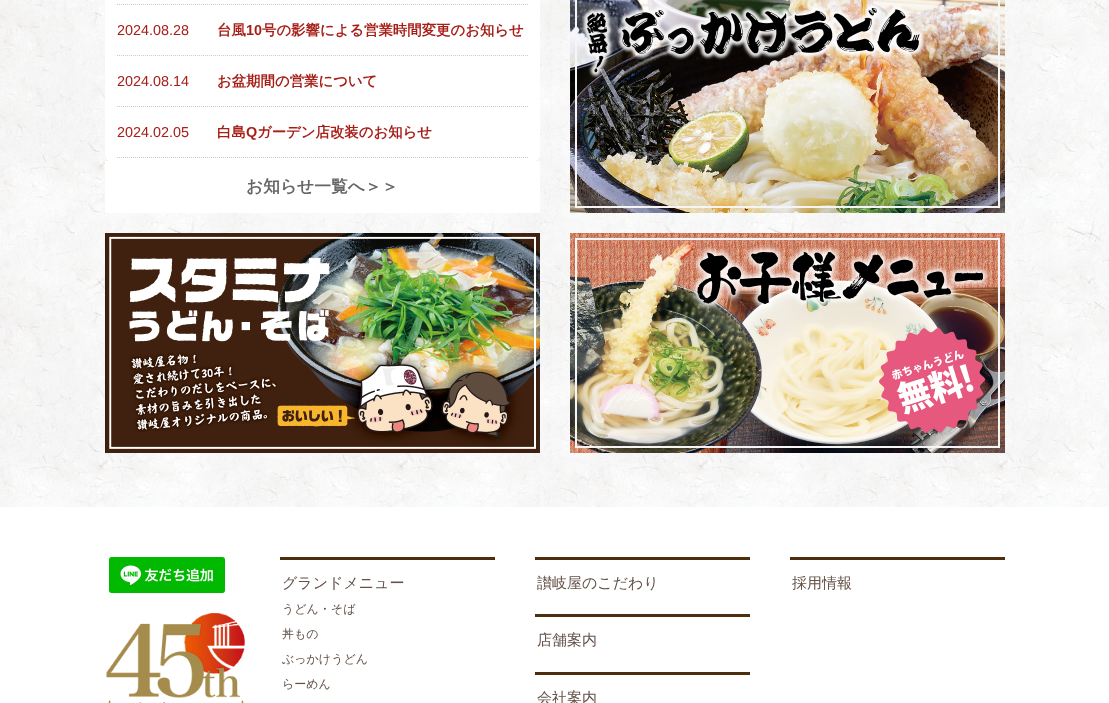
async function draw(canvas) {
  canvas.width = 1109;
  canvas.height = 703;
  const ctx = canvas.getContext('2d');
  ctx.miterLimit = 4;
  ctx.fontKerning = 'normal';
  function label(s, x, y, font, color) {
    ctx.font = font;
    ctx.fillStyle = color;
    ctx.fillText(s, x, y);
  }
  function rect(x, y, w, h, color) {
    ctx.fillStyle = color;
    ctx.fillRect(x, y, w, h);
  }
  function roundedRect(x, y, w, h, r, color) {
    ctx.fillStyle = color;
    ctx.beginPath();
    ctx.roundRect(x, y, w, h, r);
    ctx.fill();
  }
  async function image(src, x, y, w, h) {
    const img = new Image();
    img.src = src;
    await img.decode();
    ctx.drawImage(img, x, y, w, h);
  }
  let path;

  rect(0, 0, 1109, 703, '#fff');
  await image('assets/img1.png', 0, 0, 1109, 507);
  roundedRect(105, -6, 435, 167, 6, '#fff');
  path = new Path2D('M117 4.5H528');
  ctx.strokeStyle = '#ccc';
  ctx.setLineDash([1, 1]);
  ctx.stroke(path);
  path = new Path2D('M117 55.5H528');
  ctx.stroke(path);
  label('2024.08.28', 117, 35, '14.4px Liberation Sans', '#a71e17');
  label('台風', 217, 35, 'bold 14.4px WenQuanYi Zen Hei', '#a71e17');
  label('10', 246, 35, 'bold 14.4px Liberation Sans', '#a71e17');
  label('号の影響による営業時間変更のお知らせ', 262, 35, 'bold 14.4px WenQuanYi Zen Hei', '#a71e17');
  path = new Path2D('M117 106.5H528');
  ctx.stroke(path);
  label('2024.08.14', 117, 86, '14.4px Liberation Sans', '#a71e17');
  label('お盆期間の営業について', 217, 86, 'bold 14.4px WenQuanYi Zen Hei', '#a71e17');
  path = new Path2D('M117 157.5H528');
  ctx.stroke(path);
  label('2024.02.05', 117, 137, '14.4px Liberation Sans', '#a71e17');
  label('白島', 217, 137, 'bold 14.4px WenQuanYi Zen Hei', '#a71e17');
  label('Q', 246, 137, 'bold 14.4px Liberation Sans', '#a71e17');
  label('ガーデン店改装のお知らせ', 257, 137, 'bold 14.4px WenQuanYi Zen Hei', '#a71e17');
  rect(105, 161, 435, 52, '#fff');
  label('お知らせ一覧へ＞＞', 246, 192, 'bold 16.75px WenQuanYi Zen Hei', '#666');
  await image('assets/img2.png', 105, 233, 435, 220);
  await image('assets/img3.png', 570, 0, 435, 213);
  await image('assets/img4.png', 570, 233, 435, 220);
  await image('assets/img5.png', 109, 557, 116, 36);
  await image('assets/img6.png', 106, 613, 139, 90);
  rect(280, 557, 215, 3, '#4d2f10');
  label('グランドメニュー', 282, 588, '500 15px WenQuanYi Zen Hei', '#635147');
  label('うどん・そば', 282, 613, '500 12px WenQuanYi Zen Hei', '#635147');
  label('丼もの', 282, 638, '500 12px WenQuanYi Zen Hei', '#635147');
  label('ぶっかけうどん', 282, 663, '500 12px WenQuanYi Zen Hei', '#635147');
  label('らーめん', 282, 688, '500 12px WenQuanYi Zen Hei', '#635147');
  rect(535, 557, 215, 3, '#4d2f10');
  label('讃岐屋のこだわり', 537, 588, '500 15px WenQuanYi Zen Hei', '#635147');
  rect(535, 614, 215, 3, '#4d2f10');
  label('店舗案内', 537, 645, '500 15px WenQuanYi Zen Hei', '#635147');
  rect(535, 672, 215, 3, '#4d2f10');
  label('会社案内', 537, 703, '500 15px WenQuanYi Zen Hei', '#635147');
  rect(790, 557, 215, 3, '#4d2f10');
  label('採用情報', 792, 588, '500 15px WenQuanYi Zen Hei', '#635147');
}

draw(document.querySelector('canvas'));
